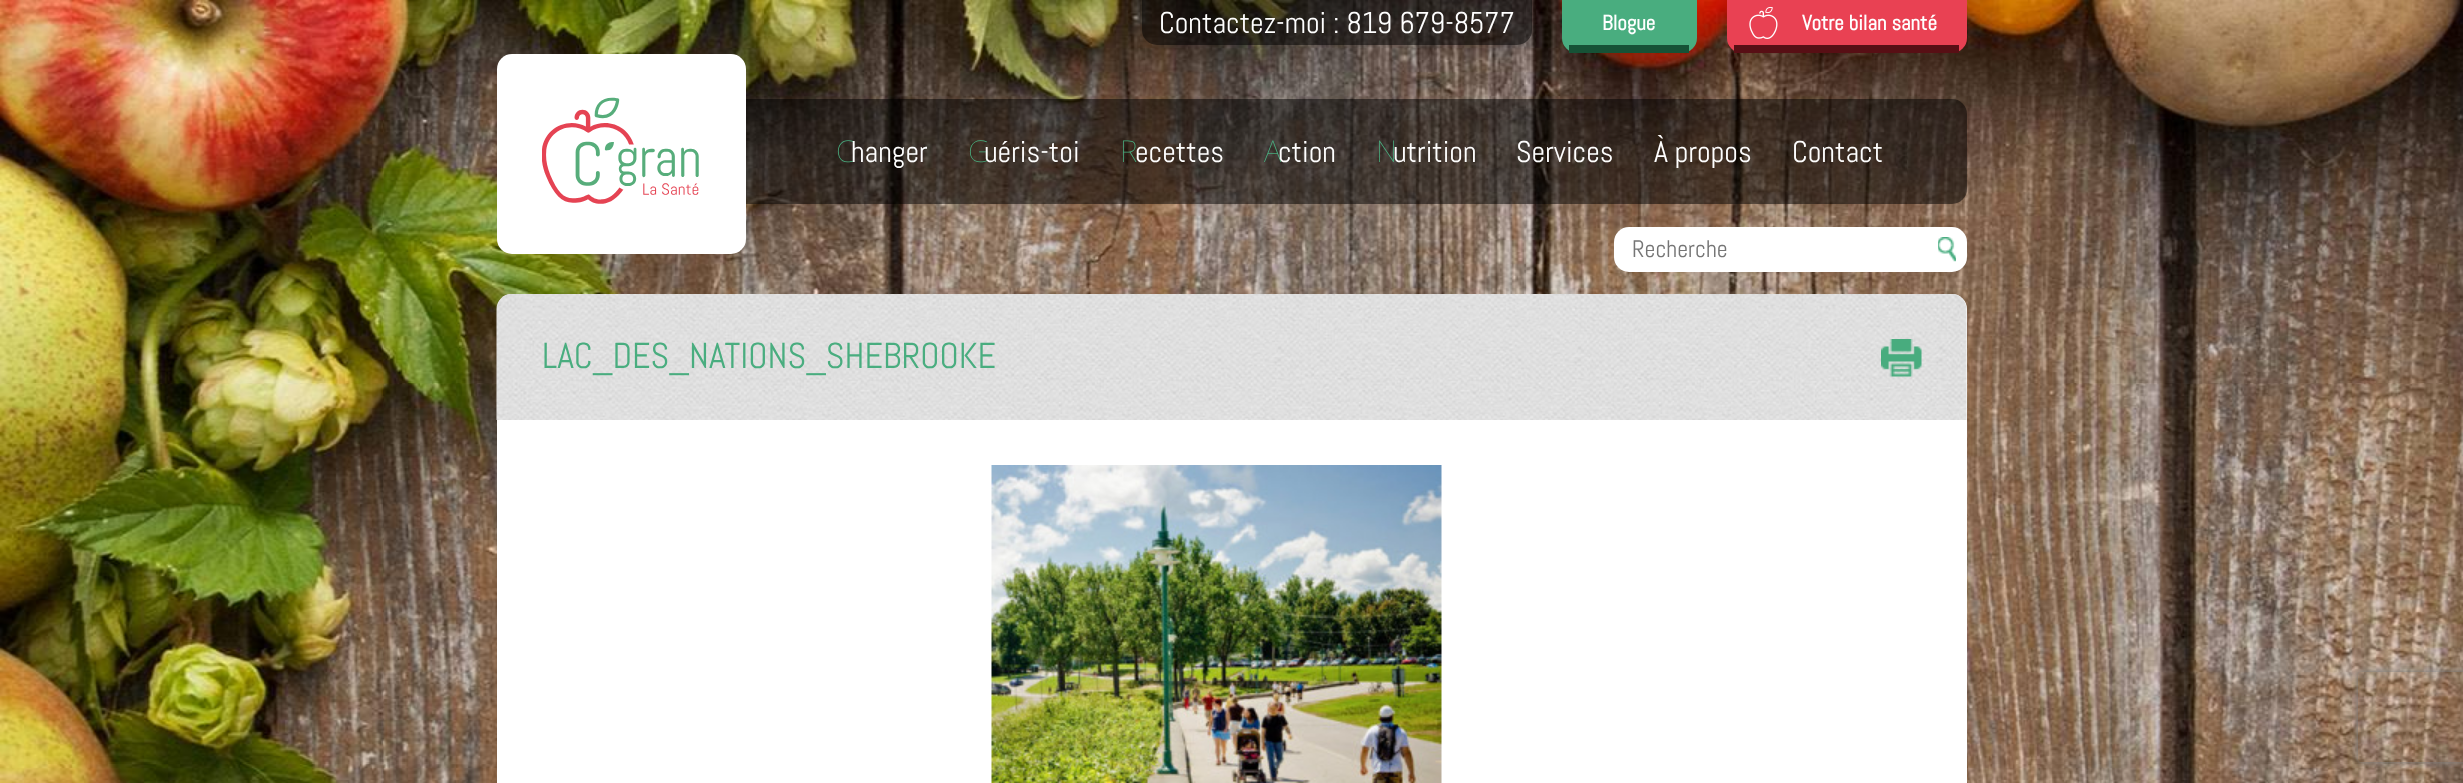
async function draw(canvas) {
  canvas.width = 2463;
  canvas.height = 783;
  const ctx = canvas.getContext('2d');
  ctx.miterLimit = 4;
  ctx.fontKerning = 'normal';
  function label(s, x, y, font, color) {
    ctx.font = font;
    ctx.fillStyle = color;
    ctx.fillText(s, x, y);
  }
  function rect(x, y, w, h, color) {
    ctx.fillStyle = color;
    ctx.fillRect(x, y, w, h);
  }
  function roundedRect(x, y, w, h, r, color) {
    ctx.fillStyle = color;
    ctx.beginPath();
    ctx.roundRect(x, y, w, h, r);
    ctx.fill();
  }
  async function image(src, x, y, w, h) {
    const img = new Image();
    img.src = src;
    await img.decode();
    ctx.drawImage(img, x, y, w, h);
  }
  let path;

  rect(0, 0, 2463, 783, '#fff');
  await image('assets/img1.png', 0, 0, 2463, 783);
  ctx.fillStyle = '#00000080';
  ctx.beginPath();
  ctx.roundRect(1142, 0, 390, 45, [0, 0, 15, 15]);
  ctx.fill();
  label('Contactez-moi : 819 679-8577', 1159, 33, '30px Abel', '#fff');
  ctx.fillStyle = '#49ad7f';
  ctx.beginPath();
  ctx.roundRect(1562, 0, 135, 53, [0, 0, 15, 15]);
  ctx.fill();
  rect(1569, 45, 120, 8, '#165236');
  label('Blogue', 1602, 30, 'bold 21px Abel', '#fff');
  ctx.fillStyle = '#e94153';
  ctx.beginPath();
  ctx.roundRect(1727, 0, 240, 53, [0, 0, 15, 15]);
  ctx.fill();
  await image('assets/img2.png', 1749, 6, 29, 33);
  rect(1734, 45, 225, 8, '#580f15');
  label('Votre bilan santé', 1802, 30, 'bold 21px Abel', '#fff');
  roundedRect(497, 54, 249, 200, 15, '#fff');
  await image('assets/img3.png', 542, 97, 157, 107);
  ctx.fillStyle = '#00000080';
  ctx.beginPath();
  ctx.roundRect(746, 99, 1221, 105, [0, 15, 15, 0]);
  ctx.fill();
  label('C', 836, 162, '100 30px Noto Sans', '#49ad7f');
  label('hanger', 851, 162, '30px Abel', '#fff');
  label('G', 968, 162, '100 30px Noto Sans', '#49ad7f');
  label('uéris-toi', 984, 162, '30px Abel', '#fff');
  label('R', 1120, 162, '100 30px Noto Sans', '#49ad7f');
  label('ecettes', 1135, 162, '30px Abel', '#fff');
  label('A', 1264, 162, '100 30px Noto Sans', '#49ad7f');
  label('ction', 1278, 162, '30px Abel', '#fff');
  label('N', 1376, 162, '100 30px Noto Sans', '#49ad7f');
  label('utrition', 1393, 162, '30px Abel', '#fff');
  label('Services', 1516, 162, '30px Abel', '#fff');
  label('À propos', 1654, 162, '30px Abel', '#fff');
  label('Contact', 1792, 162, '30px Abel', '#fff');
  roundedRect(1614, 227, 353, 45, 15, '#fff');
  label('Recherche', 1632, 257, '24px Abel', '#757575');
  await image('assets/img4.png', 1938, 237, 18, 25);
  roundedRect(497, 294, 1470, 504, 15, '#fff');
  await image('assets/img5.png', 496, 294, 1471, 126);
  label('LAC_DES_NATIONS_SHEBROOKE', 542, 368, '36px Abel', '#49ad7f');
  await image('assets/img6.png', 1881, 339, 41, 38);
  await image('assets/img7.png', 991, 465, 451, 318);
  ctx.save();
  path = new Path2D('M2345 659H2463V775H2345ZM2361 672H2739C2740.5 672 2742 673.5 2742 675V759C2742 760.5 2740.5 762 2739 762H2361C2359.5 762 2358 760.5 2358 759V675C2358 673.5 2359.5 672 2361 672Z');
  ctx.clip(path, 'evenodd');
  ctx.fillStyle = '#808080';
  ctx.filter = 'blur(4px)';
  ctx.beginPath();
  ctx.roundRect(2358, 672, 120, 90, 3);
  ctx.fill();
  ctx.filter = 'none';
  ctx.restore();
}

draw(document.querySelector('canvas'));
